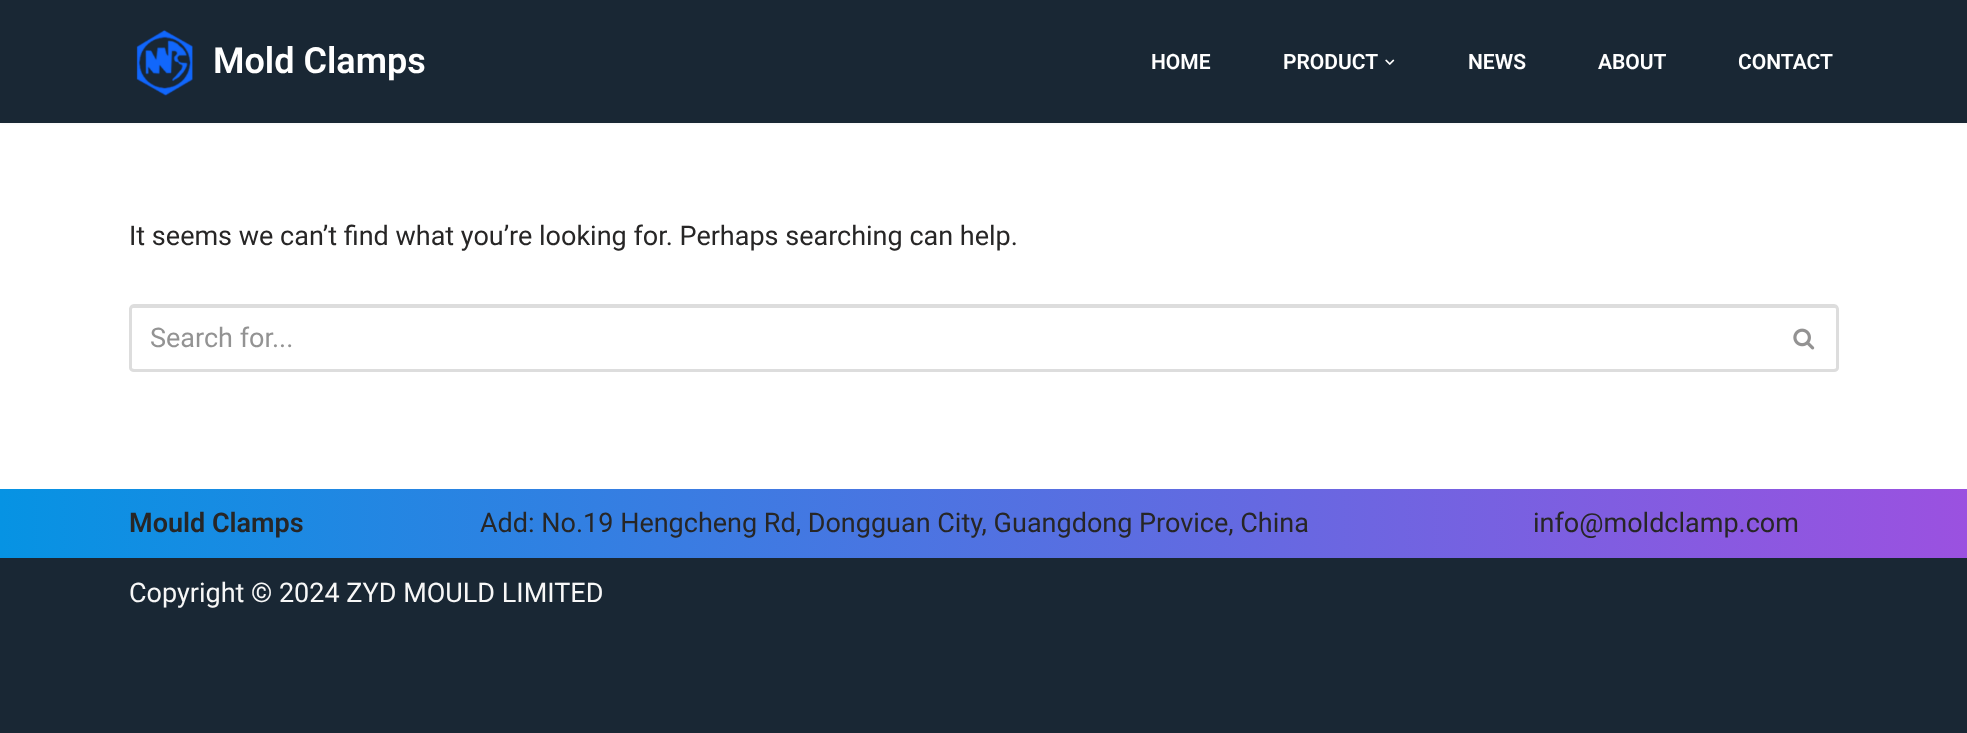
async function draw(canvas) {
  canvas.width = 1967;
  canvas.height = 733;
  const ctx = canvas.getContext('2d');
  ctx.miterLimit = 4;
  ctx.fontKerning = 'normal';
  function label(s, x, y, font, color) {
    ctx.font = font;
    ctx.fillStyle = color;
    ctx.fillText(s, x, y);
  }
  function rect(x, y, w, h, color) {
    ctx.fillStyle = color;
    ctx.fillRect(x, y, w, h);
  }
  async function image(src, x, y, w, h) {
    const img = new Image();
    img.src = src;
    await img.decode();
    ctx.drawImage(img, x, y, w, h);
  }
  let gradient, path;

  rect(0, 0, 1967, 733, '#fff');
  ctx.fillStyle = '#0000001a';
  ctx.filter = 'blur(2px)';
  ctx.beginPath();
  ctx.rect(0, -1, 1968, 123);
  ctx.fill();
  ctx.filter = 'none';
  rect(0, 0, 1967, 123, '#192734');
  await image('assets/img1.png', 136, 30, 57, 66);
  label('Mold Clamps', 213, 73, '600 36px Roboto', '#fff');
  label('HOME', 1151, 69, '600 21px Roboto', '#fff');
  label('PRODUCT', 1283, 69, '600 21px Roboto', '#fff');
  await image('assets/img2.png', 1385, 59, 10, 6);
  label('NEWS', 1468, 69, '600 21px Roboto', '#fff');
  label('ABOUT', 1598, 69, '600 21px Roboto', '#fff');
  label('CONTACT', 1738, 69, '600 21px Roboto', '#fff');
  label('It seems we can’t find what you’re looking for. Perhaps searching can help.', 129, 245, '27px Roboto', '#272626');
  ctx.fillStyle = '#ddd';
  path = new Path2D('M134 304H1772V372H134C131 372 129 370 129 368V309C129 307 131 304 134 304ZM134 308H1772V369H134C133 369 132 368 132 368V309C132 308 133 308 134 308Z');
  ctx.fill(path, 'evenodd');
  label('Search for...', 150, 347, '27px Roboto', '#939393');
  ctx.fillStyle = '#ddd';
  path = new Path2D('M1772 304H1834C1837 304 1839 307 1839 309V368C1839 370 1837 372 1834 372H1772ZM1772 308H1834C1835 308 1836 308 1836 309V368C1836 368 1835 369 1834 369H1772Z');
  ctx.fill(path, 'evenodd');
  await image('assets/img3.png', 1793, 328, 22, 22);
  gradient = ctx.createLinearGradient(0, 524, 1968, 523);
  gradient.addColorStop(0, '#0693e3');
  gradient.addColorStop(1, '#9b51e0');
  ctx.fillStyle = gradient;
  ctx.fillRect(0, 489, 1967, 69);
  label('Mould Clamps', 129, 532, '600 27px Roboto', '#272626');
  label('Add: No.19 Hengcheng Rd, Dongguan City, Guangdong Provice, China', 480, 532, '27px Roboto', '#272626');
  label('info@moldclamp.com', 1533, 532, '27px Roboto', '#272626');
  rect(0, 558, 1967, 175, '#192734');
  label('Copyright © 2024 ZYD MOULD LIMITED', 129, 602, '27px Roboto', '#f7f7f7');
}

draw(document.querySelector('canvas'));
